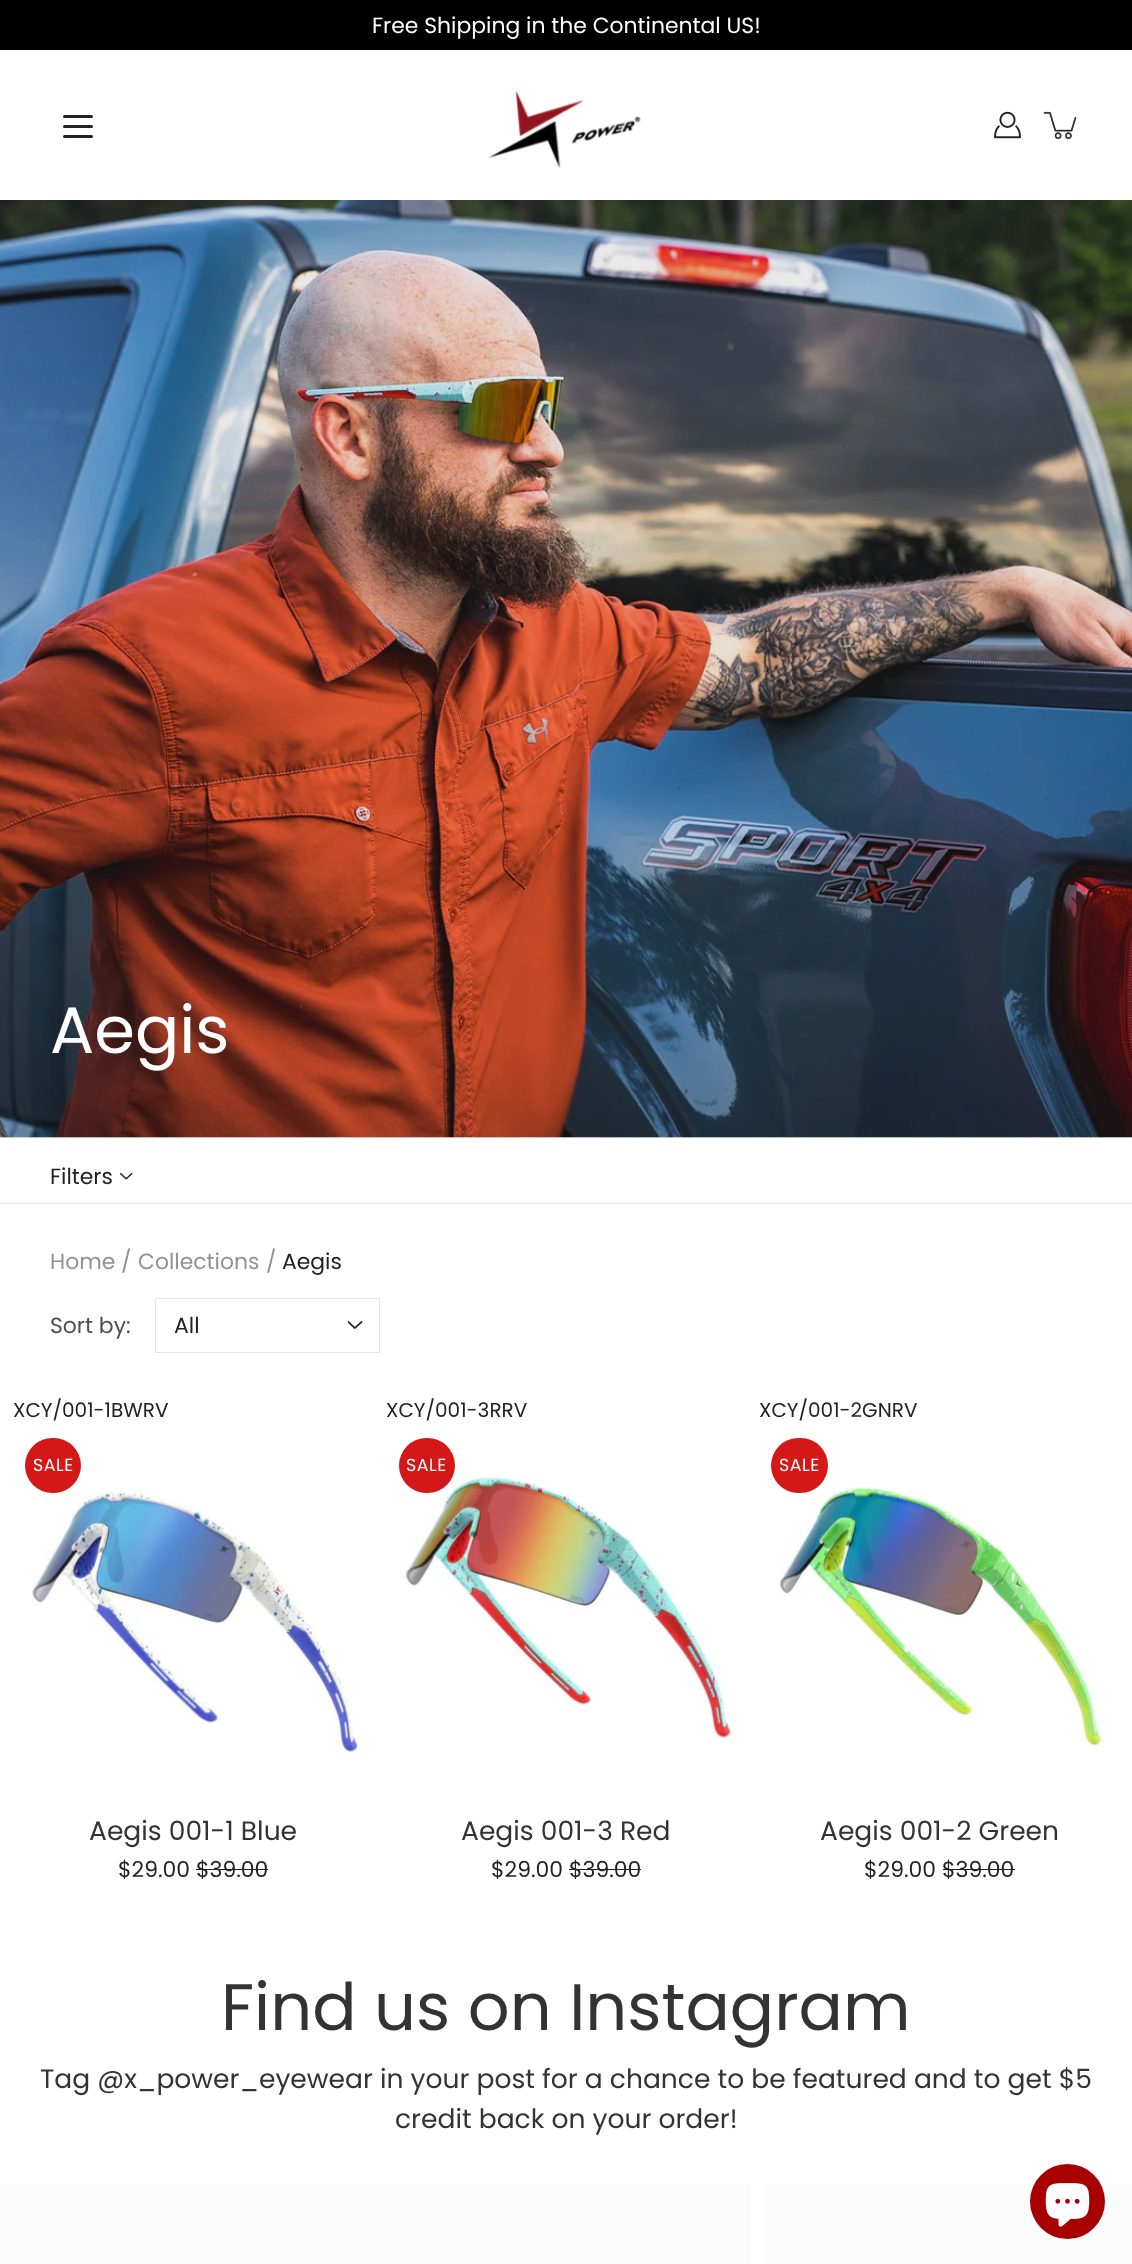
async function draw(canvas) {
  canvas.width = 1132;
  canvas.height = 2264;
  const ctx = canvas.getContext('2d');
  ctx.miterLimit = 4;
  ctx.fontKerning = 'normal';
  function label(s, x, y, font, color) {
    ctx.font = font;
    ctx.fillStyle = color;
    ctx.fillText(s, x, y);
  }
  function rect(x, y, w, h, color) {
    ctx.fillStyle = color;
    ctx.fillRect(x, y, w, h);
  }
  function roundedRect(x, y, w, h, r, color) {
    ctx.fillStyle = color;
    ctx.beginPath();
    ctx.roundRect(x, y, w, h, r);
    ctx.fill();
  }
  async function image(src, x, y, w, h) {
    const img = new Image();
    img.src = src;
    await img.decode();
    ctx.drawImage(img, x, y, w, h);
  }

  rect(0, 0, 1132, 2264, '#fff');
  rect(0, 1137, 1132, 1, '#e9e9e9');
  rect(0, 0, 1132, 50, '#000');
  label('Free Shipping in the Continental US!', 372, 33, '21.9px Poppins', '#fff');
  await image('assets/img1.png', 488, 91, 153, 77);
  roundedRect(63, 125, 30, 3, 1.5, '#222');
  roundedRect(63, 115, 30, 3, 1.5, '#222');
  roundedRect(63, 135, 30, 3, 1.5, '#222');
  await image('assets/img2.png', 994, 111, 27, 28);
  await image('assets/img3.png', 1043, 111, 34, 28);
  await image('assets/img4.png', 0, 200, 1132, 938);
  label('Aegis', 50, 1053, '65.6px Poppins', '#fff');
  rect(0, 1203, 1132, 1, '#e4e4e4');
  label('Filters', 50, 1184, '21.9px Poppins', '#222');
  await image('assets/img5.png', 120, 1173, 13, 7);
  label('Home', 50, 1269, '21.9px Poppins', '#919191');
  label('/', 121, 1269, '21.9px Poppins', '#919191');
  label('Collections', 138, 1269, '21.9px Poppins', '#919191');
  label('/', 266, 1269, '21.9px Poppins', '#919191');
  label('Aegis', 282, 1269, '21.9px Poppins', '#222');
  label('Sort by:', 50, 1333, '21.9px Poppins', '#4e4e4e');
  ctx.strokeStyle = '#e4e4e4';
  ctx.strokeRect(155.5, 1298.5, 224, 54);
  label('All', 174, 1333, '21.9px Poppins', '#222');
  await image('assets/img6.png', 348, 1321, 15, 8);
  label('XCY/001-1BWRV', 13, 1417, '20px Poppins', '#222');
  await image('assets/img7.png', 32, 1489, 326, 266);
  roundedRect(25, 1438, 56, 55, 27.5, '#d41818');
  ctx.letterSpacing = '0.5px';
  label('SALE', 33, 1471, '17.5px Poppins', '#fff');
  ctx.letterSpacing = '0px';
  label('Aegis 001-1 Blue', 89, 1840, '26.55px Poppins', '#333');
  label('$29.00 $39.00', 118, 1877, '21.9px Poppins', '#222');
  rect(196, 1869, 72, 1, '#222');
  label('XCY/001-3RRV', 386, 1417, '20px Poppins', '#222');
  await image('assets/img8.png', 405, 1475, 327, 264);
  roundedRect(399, 1438, 56, 55, 27.5, '#d41818');
  ctx.letterSpacing = '0.5px';
  label('SALE', 406, 1471, '17.5px Poppins', '#fff');
  ctx.letterSpacing = '0px';
  label('Aegis 001-3 Red', 461, 1840, '26.55px Poppins', '#333');
  label('$29.00 $39.00', 491, 1877, '21.9px Poppins', '#222');
  rect(569, 1869, 72, 1, '#222');
  label('XCY/001-2GNRV', 759, 1417, '20px Poppins', '#222');
  await image('assets/img9.png', 779, 1487, 325, 259);
  roundedRect(771, 1438, 57, 55, 27.5, '#d41818');
  ctx.letterSpacing = '0.5px';
  label('SALE', 779, 1471, '17.5px Poppins', '#fff');
  ctx.letterSpacing = '0px';
  label('Aegis 001-2 Green', 820, 1840, '26.55px Poppins', '#333');
  label('$29.00 $39.00', 864, 1877, '21.9px Poppins', '#222');
  rect(943, 1869, 72, 1, '#222');
  label('Find us on Instagram', 221, 2030, '65.6px Poppins', '#333');
  label('Tag @x_power_eyewear in your post for a chance to be featured and to get $5', 40, 2088, '26.55px Poppins', '#333');
  label('credit back on your order!', 395, 2128, '26.55px Poppins', '#333');
  rect(0, 2184, 751, 80, '#fcfcfc');
  rect(763, 2184, 369, 80, '#fcfcfc');
  ctx.fillStyle = '#a80000';
  ctx.beginPath();
  ctx.arc(1067.5, 2201.5, 37.5, 0, 2 * Math.PI);
  ctx.fill();
  await image('assets/img10.png', 1045, 2183, 45, 44);
}

draw(document.querySelector('canvas'));
